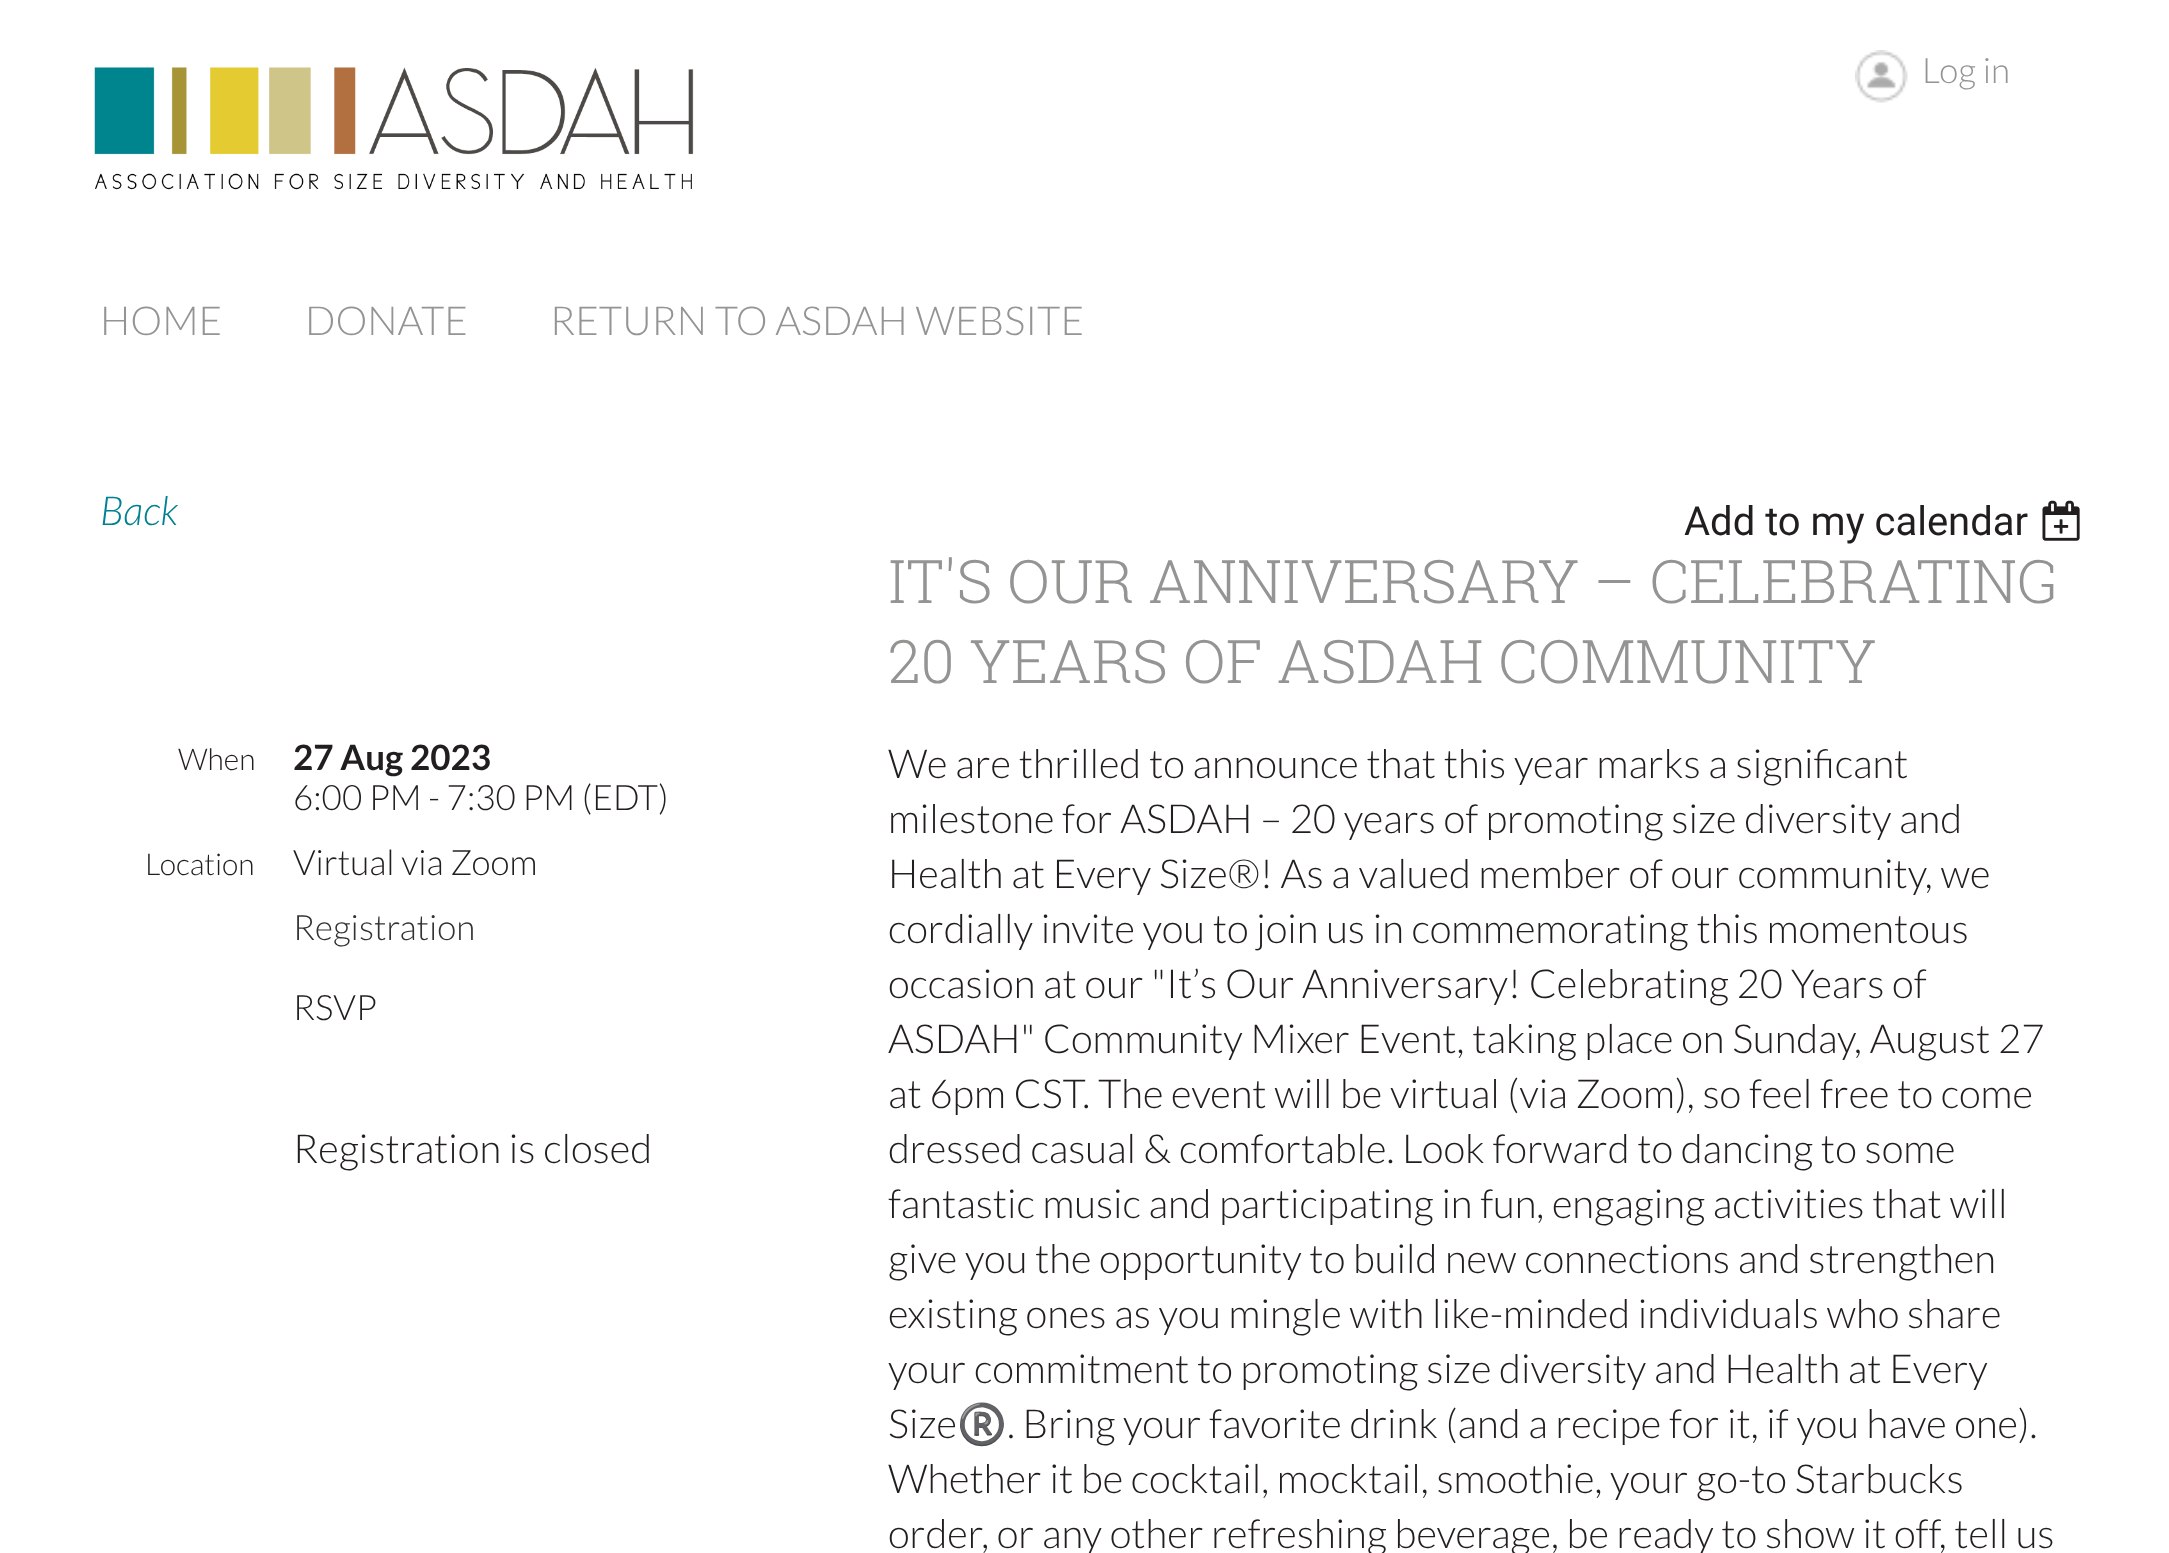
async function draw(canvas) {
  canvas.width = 2169;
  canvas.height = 1553;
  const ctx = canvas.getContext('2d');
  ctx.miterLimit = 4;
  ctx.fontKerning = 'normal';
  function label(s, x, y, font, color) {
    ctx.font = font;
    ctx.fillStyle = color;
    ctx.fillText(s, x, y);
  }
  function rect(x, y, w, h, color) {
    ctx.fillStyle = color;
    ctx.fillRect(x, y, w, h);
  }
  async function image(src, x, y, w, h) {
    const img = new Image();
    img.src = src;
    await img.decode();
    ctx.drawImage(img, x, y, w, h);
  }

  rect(0, 0, 2169, 1553, '#fff');
  await image('assets/img1.png', 94, 67, 600, 123);
  await image('assets/img2.png', 1855, 50, 53, 53);
  label('Log in', 1922, 83, '300 35px Lato', '#949493');
  label('HOME', 100, 335, '300 40px Lato', '#949493');
  label('DONATE', 305, 335, '300 40px Lato', '#949493');
  label('RETURN TO ASDAH WEBSITE', 550, 335, '300 40px Lato', '#949493');
  label('Back', 100, 525, 'italic 300 40px Lato', '#008093');
  label('Add to my calendar', 1684, 535, '40px Roboto', '#221e1f');
  await image('assets/img3.png', 2042, 500, 38, 41);
  label('IT\'S OUR ANNIVERSARY – CELEBRATING', 888, 603, '300 60px Roboto Slab', '#949493');
  label('20 YEARS OF ASDAH COMMUNITY', 888, 683, '300 60px Roboto Slab', '#949493');
  label('When', 178, 770, '300 30px Lato', '#221e1f');
  label('27 Aug 2023', 293, 770, 'bold 35px Lato', '#221e1f');
  label('6:00 PM - 7:30 PM (EDT)', 293, 810, '300 35px Lato', '#221e1f');
  label('Location', 145, 875, '300 30px Lato', '#221e1f');
  label('Virtual via Zoom', 293, 875, '300 35px Lato', '#221e1f');
  label('Registration', 293, 940, '300 35px Lato', '#333');
  label('RSVP', 293, 1020, '300 35px Lato', '#221e1f');
  label('Registration is closed', 293, 1163, '300 40px Lato', '#221e1f');
  label('We are thrilled to announce that this year marks a significant', 888, 778, '300 40px Lato', '#221e1f');
  label('milestone for ASDAH – 20 years of promoting size diversity and', 888, 833, '300 40px Lato', '#221e1f');
  label('Health at Every Size®! As a valued member of our community, we', 888, 888, '300 40px Lato', '#221e1f');
  label('cordially invite you to join us in commemorating this momentous', 888, 943, '300 40px Lato', '#221e1f');
  label('occasion at our "It’s Our Anniversary! Celebrating 20 Years of', 888, 998, '300 40px Lato', '#221e1f');
  label('ASDAH" Community Mixer Event, taking place on Sunday, August 27', 888, 1053, '300 40px Lato', '#221e1f');
  label('at 6pm CST. The event will be virtual (via Zoom), so feel free to come', 888, 1108, '300 40px Lato', '#221e1f');
  label('dressed casual & comfortable. Look forward to dancing to some', 888, 1163, '300 40px Lato', '#221e1f');
  label('fantastic music and participating in fun, engaging activities that will', 888, 1218, '300 40px Lato', '#221e1f');
  label('give you the opportunity to build new connections and strengthen', 888, 1273, '300 40px Lato', '#221e1f');
  label('existing ones as you mingle with like-minded individuals who share', 888, 1328, '300 40px Lato', '#221e1f');
  label('your commitment to promoting size diversity and Health at Every', 888, 1383, '300 40px Lato', '#221e1f');
  label('Size', 888, 1438, '300 40px Lato', '#221e1f');
  label('®️', 957, 1438, '40px Noto Color Emoji', '#221e1f');
  label('. Bring your favorite drink (and a recipe for it, if you have one).', 1007, 1438, '300 40px Lato', '#221e1f');
  label('Whether it be cocktail, mocktail, smoothie, your go-to Starbucks', 888, 1493, '300 40px Lato', '#221e1f');
  label('order, or any other refreshing beverage, be ready to show it off, tell us', 888, 1548, '300 40px Lato', '#221e1f');
}

draw(document.querySelector('canvas'));
